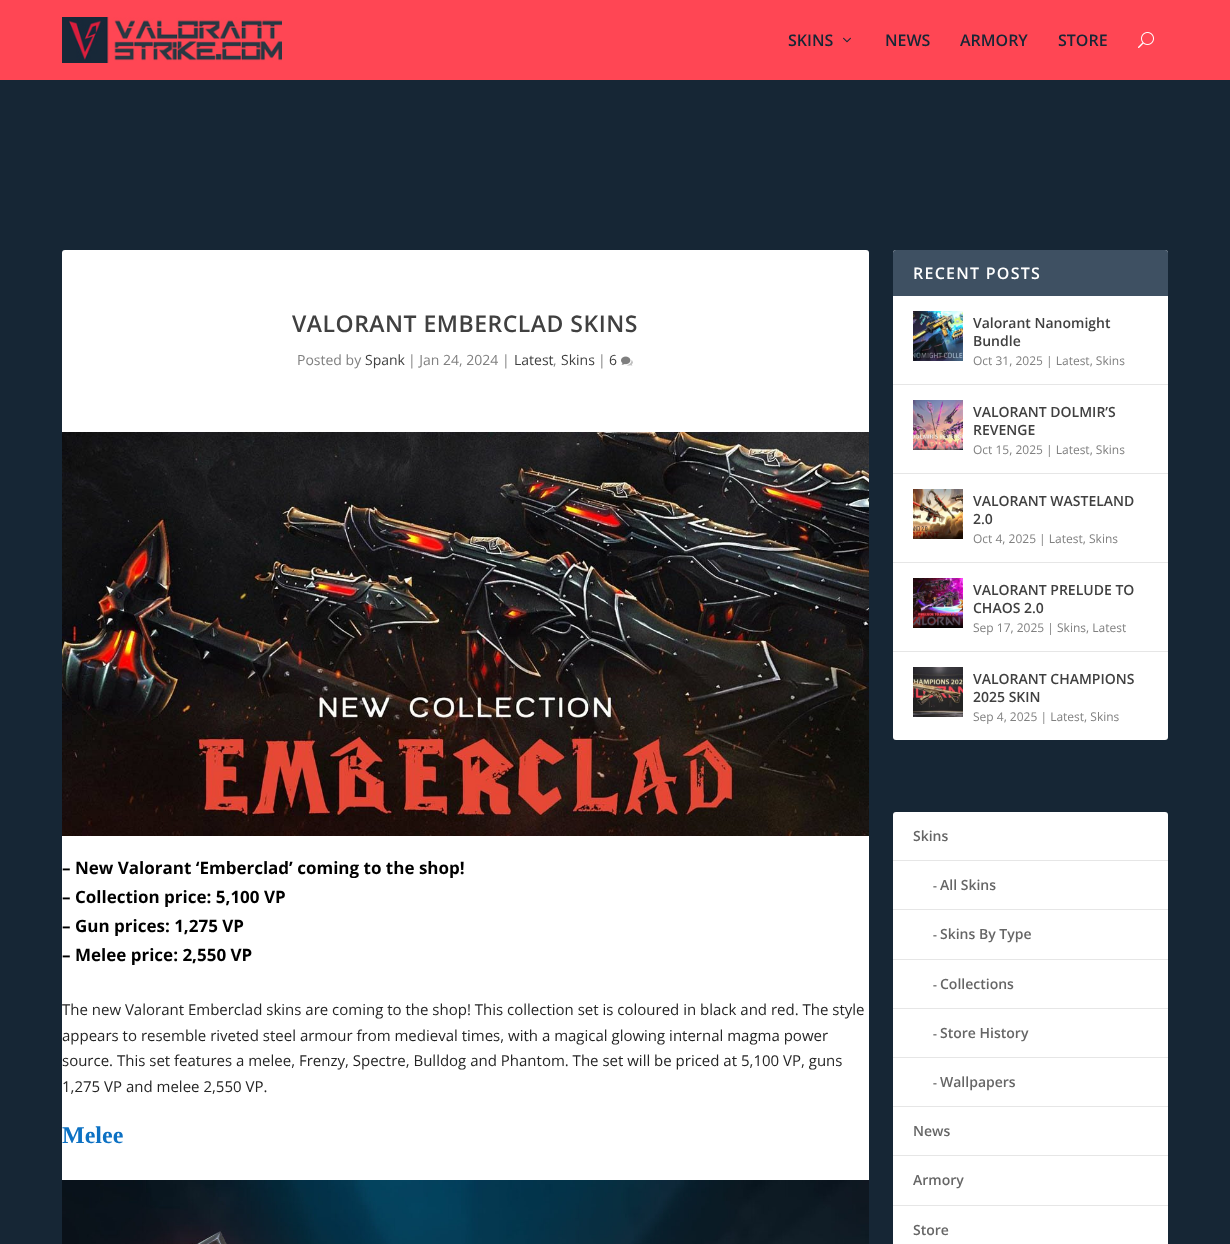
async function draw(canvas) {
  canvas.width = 1230;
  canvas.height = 1244;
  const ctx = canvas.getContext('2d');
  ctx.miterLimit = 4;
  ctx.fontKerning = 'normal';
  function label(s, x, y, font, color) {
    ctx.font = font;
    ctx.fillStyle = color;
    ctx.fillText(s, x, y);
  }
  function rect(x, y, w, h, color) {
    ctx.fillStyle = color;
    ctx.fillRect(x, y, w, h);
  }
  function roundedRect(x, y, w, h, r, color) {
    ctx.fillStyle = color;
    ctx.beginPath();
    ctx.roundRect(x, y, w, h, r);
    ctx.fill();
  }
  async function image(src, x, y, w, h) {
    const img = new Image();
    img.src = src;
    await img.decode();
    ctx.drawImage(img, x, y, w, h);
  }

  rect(0, 0, 1230, 1244, '#162635');
  rect(0, 0, 1230, 80, '#ff4654');
  await image('assets/img1.png', 62, 17, 220, 46);
  label('SKINS', 788, 46, '600 16px Open Sans', '#162635');
  await image('assets/img2.png', 843, 37, 8, 6);
  label('NEWS', 885, 46, '600 16px Open Sans', '#162635');
  label('ARMORY', 960, 46, '600 16px Open Sans', '#162635');
  label('STORE', 1058, 46, '600 16px Open Sans', '#162635');
  await image('assets/img3.png', 1138, 32, 16, 16);
  roundedRect(62, 250, 807, 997, 3, '#fff');
  ctx.letterSpacing = '0.5px';
  label('VALORANT EMBERCLAD SKINS', 292, 332, '600 23px Open Sans', '#404040');
  ctx.letterSpacing = '0px';
  label('Posted by', 297, 365, '14px Open Sans', '#808080');
  label('Spank', 365, 365, '14px Open Sans', '#404040');
  label('| Jan 24, 2024 |', 408, 365, '14px Open Sans', '#808080');
  label('Latest', 514, 365, '14px Open Sans', '#404040');
  label(',', 553, 365, '14px Open Sans', '#808080');
  label('Skins', 561, 365, '14px Open Sans', '#404040');
  label('|', 598, 365, '14px Open Sans', '#808080');
  label('6', 609, 365, '14px Open Sans', '#404040');
  await image('assets/img4.png', 621, 356, 12, 10);
  await image('assets/img5.png', 62, 432, 807, 404);
  label('– New Valorant ‘Emberclad’ coming to the shop!', 62, 874, 'bold 17px Open Sans', '#000');
  label('– Collection price: 5,100 VP', 62, 903, 'bold 17px Open Sans', '#000');
  label('– Gun prices: 1,275 VP', 62, 932, 'bold 17px Open Sans', '#000');
  label('– Melee price: 2,550 VP', 62, 961, 'bold 17px Open Sans', '#000');
  label('The new Valorant Emberclad skins are coming to the shop! This collection set is coloured in black and red. The style', 62, 1015, '15px Open Sans', '#252525');
  label('appears to resemble riveted steel armour from medieval times, with a magical glowing internal magma power', 62, 1041, '15px Open Sans', '#252525');
  label('source. This set features a melee, Frenzy, Spectre, Bulldog and Phantom. The set will be priced at 5,100 VP, guns', 62, 1066, '15px Open Sans', '#252525');
  label('1,275 VP and melee 2,550 VP.', 62, 1092, '15px Open Sans', '#252525');
  label('Melee', 62, 1143, 'bold 24px Liberation Serif', '#0c71c3');
  await image('assets/img6.png', 62, 1180, 807, 64);
  roundedRect(893, 250, 275, 490, 3, '#fff');
  ctx.fillStyle = '#3e5062';
  ctx.beginPath();
  ctx.roundRect(893, 250, 275, 46, [3, 3, 0, 0]);
  ctx.fill();
  ctx.letterSpacing = '1.25px';
  label('RECENT POSTS', 913, 279, '600 16px Open Sans', '#fff');
  rect(893, 384, 275, 1, '#e6e6e6');
  await image('assets/img7.png', 913, 311, 50, 50);
  ctx.letterSpacing = '0px';
  label('Valorant Nanomight', 973, 328, '600 14px Open Sans', '#404040');
  label('Bundle', 973, 346, '600 14px Open Sans', '#404040');
  label('Oct 31, 2025 | Latest, Skins', 973, 365, '12px Open Sans', '#808080');
  rect(893, 473, 275, 1, '#e6e6e6');
  await image('assets/img8.png', 913, 400, 50, 50);
  label('VALORANT DOLMIR’S', 973, 417, '600 14px Open Sans', '#404040');
  label('REVENGE', 973, 435, '600 14px Open Sans', '#404040');
  label('Oct 15, 2025 | Latest, Skins', 973, 454, '12px Open Sans', '#808080');
  rect(893, 562, 275, 1, '#e6e6e6');
  await image('assets/img9.png', 913, 489, 50, 50);
  label('VALORANT WASTELAND', 973, 506, '600 14px Open Sans', '#404040');
  label('2.0', 973, 524, '600 14px Open Sans', '#404040');
  label('Oct 4, 2025 | Latest, Skins', 973, 543, '12px Open Sans', '#808080');
  rect(893, 651, 275, 1, '#e6e6e6');
  await image('assets/img10.png', 913, 578, 50, 50);
  label('VALORANT PRELUDE TO', 973, 595, '600 14px Open Sans', '#404040');
  label('CHAOS 2.0', 973, 613, '600 14px Open Sans', '#404040');
  label('Sep 17, 2025 | Skins, Latest', 973, 632, '12px Open Sans', '#808080');
  await image('assets/img11.png', 913, 667, 50, 50);
  label('VALORANT CHAMPIONS', 973, 684, '600 14px Open Sans', '#404040');
  label('2025 SKIN', 973, 702, '600 14px Open Sans', '#404040');
  label('Sep 4, 2025 | Latest, Skins', 973, 721, '12px Open Sans', '#808080');
  roundedRect(893, 812, 275, 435, 3, '#fff');
  rect(893, 1106, 275, 1, '#e6e6e6');
  label('Skins', 913, 841, '600 14px Open Sans', '#666');
  rect(893, 860, 275, 1, '#e6e6e6');
  rect(893, 909, 275, 1, '#e6e6e6');
  label('-', 933, 890, 'bold 12px Open Sans', '#808080');
  label('All Skins', 940, 890, '600 14px Open Sans', '#666');
  rect(893, 959, 275, 1, '#e6e6e6');
  label('-', 933, 939, 'bold 12px Open Sans', '#808080');
  label('Skins By Type', 940, 939, '600 14px Open Sans', '#666');
  rect(893, 1008, 275, 1, '#e6e6e6');
  label('-', 933, 989, 'bold 12px Open Sans', '#808080');
  label('Collections', 940, 989, '600 14px Open Sans', '#666');
  rect(893, 1057, 275, 1, '#e6e6e6');
  label('-', 933, 1038, 'bold 12px Open Sans', '#808080');
  label('Store History', 940, 1038, '600 14px Open Sans', '#666');
  label('-', 933, 1087, 'bold 12px Open Sans', '#808080');
  label('Wallpapers', 940, 1087, '600 14px Open Sans', '#666');
  rect(893, 1155, 275, 1, '#e6e6e6');
  label('News', 913, 1136, '600 14px Open Sans', '#666');
  rect(893, 1205, 275, 1, '#e6e6e6');
  label('Armory', 913, 1185, '600 14px Open Sans', '#666');
  label('Store', 913, 1235, '600 14px Open Sans', '#666');
}

draw(document.querySelector('canvas'));
